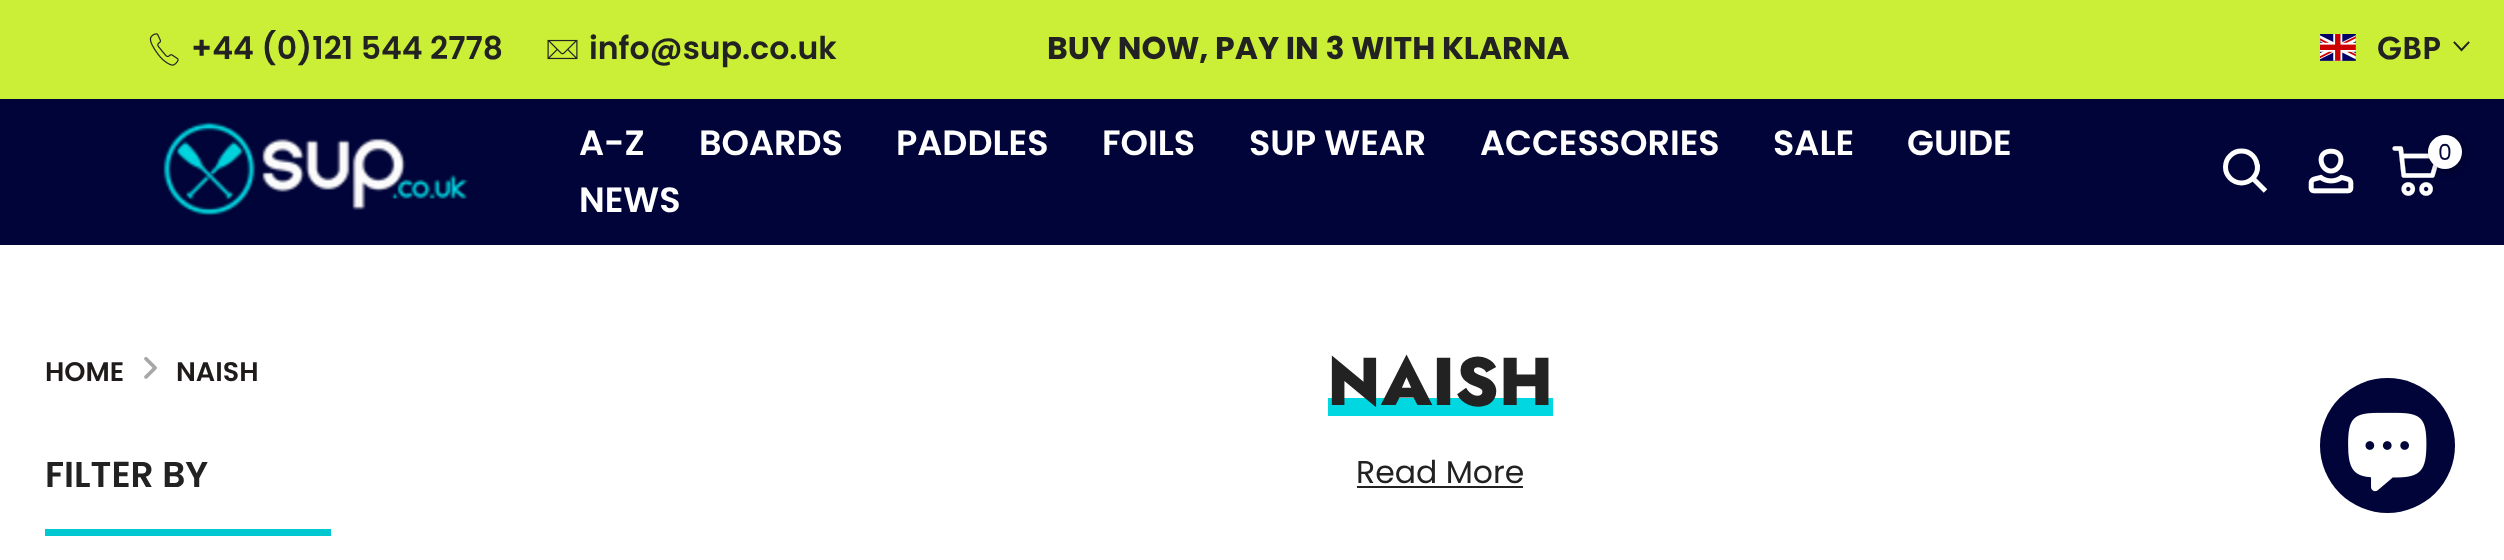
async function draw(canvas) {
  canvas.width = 2504;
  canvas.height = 560;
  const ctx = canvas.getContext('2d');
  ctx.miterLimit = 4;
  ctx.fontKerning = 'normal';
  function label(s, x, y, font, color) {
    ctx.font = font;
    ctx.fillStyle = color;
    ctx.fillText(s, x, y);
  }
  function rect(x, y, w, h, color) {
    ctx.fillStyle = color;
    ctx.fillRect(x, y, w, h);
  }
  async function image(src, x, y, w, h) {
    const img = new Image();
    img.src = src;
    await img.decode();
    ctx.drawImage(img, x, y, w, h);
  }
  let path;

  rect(0, 0, 2504, 560, '#fff');
  rect(0, 0, 2504, 99, '#cbef37');
  await image('assets/img1.png', 149, 33, 30, 33);
  label('+44 (0)121 544 2778', 191, 59, '600 31.5px Poppins', '#222');
  await image('assets/img2.png', 547, 39, 31, 21);
  label('info@sup.co.uk', 589, 59, '600 31.5px Poppins', '#222');
  label('BUY NOW, PAY IN 3 WITH KLARNA', 1047, 59, 'bold 31.5px Poppins', '#222');
  await image('assets/img3.png', 2320, 34, 36, 27);
  label('GBP', 2377, 59, '600 31.5px Jost', '#222');
  path = new Path2D('M2468.5 42.5L2461.5 50L2454.5 42.5');
  ctx.strokeStyle = '#222';
  ctx.lineWidth = 1.9;
  ctx.lineCap = 'square';
  ctx.stroke(path);
  rect(0, 99, 2504, 146, '#000438');
  await image('assets/img4.png', 163, 121, 305, 96);
  label('A-Z', 579, 155, '600 35px Poppins', '#fff');
  label('BOARDS', 699, 155, '600 35px Poppins', '#fff');
  label('PADDLES', 896, 155, '600 35px Poppins', '#fff');
  label('FOILS', 1102, 155, '600 35px Poppins', '#fff');
  label('SUP WEAR', 1249, 155, '600 35px Poppins', '#fff');
  label('ACCESSORIES', 1480, 155, '600 35px Poppins', '#fff');
  label('SALE', 1773, 155, '600 35px Poppins', '#fff');
  label('GUIDE', 1907, 155, '600 35px Poppins', '#fff');
  label('NEWS', 579, 212, '600 35px Poppins', '#fff');
  ctx.beginPath();
  ctx.arc(2241.5, 167, 16, 0, 2 * Math.PI);
  ctx.strokeStyle = '#fff';
  ctx.lineWidth = 5;
  ctx.stroke();
  path = new Path2D('M2253 178.5L2265.5 191');
  ctx.lineCap = 'butt';
  ctx.stroke(path);
  await image('assets/img5.png', 2308, 148, 46, 46);
  await image('assets/img6.png', 2392, 146, 46, 50);
  ctx.fillStyle = '#0000004d';
  ctx.filter = 'blur(3.5px)';
  ctx.beginPath();
  ctx.roundRect(2430, 137, 34, 34, 17);
  ctx.fill();
  ctx.filter = 'none';
  ctx.fillStyle = '#fff';
  ctx.beginPath();
  ctx.arc(2445, 152, 17, 0, 2 * Math.PI);
  ctx.fill();
  label('0', 2438, 160, '22px Poppins', '#000438');
  label('HOME', 45, 381, '600 27px Poppins', '#1f1b1b');
  await image('assets/img7.png', 144, 357, 13, 22);
  label('NAISH', 176, 381, '600 27px Poppins', '#1f1b1b');
  label('FILTER BY', 45, 487, '600 36px Poppins', '#222');
  rect(45, 529, 286, 7, '#00c8d1');
  rect(1328, 398, 225, 18, '#01d7e1');
  label('NAISH', 1327, 405, '800 67.5px Jost', '#222');
  label('Read More', 1356, 483, '31.5px Poppins', '#222');
  rect(1357, 486, 166, 2, '#222');
  ctx.fillStyle = '#000438';
  ctx.beginPath();
  ctx.arc(2387.5, 445.5, 67.5, 0, 2 * Math.PI);
  ctx.fill();
  await image('assets/img8.png', 2348, 412, 79, 80);
}

draw(document.querySelector('canvas'));
